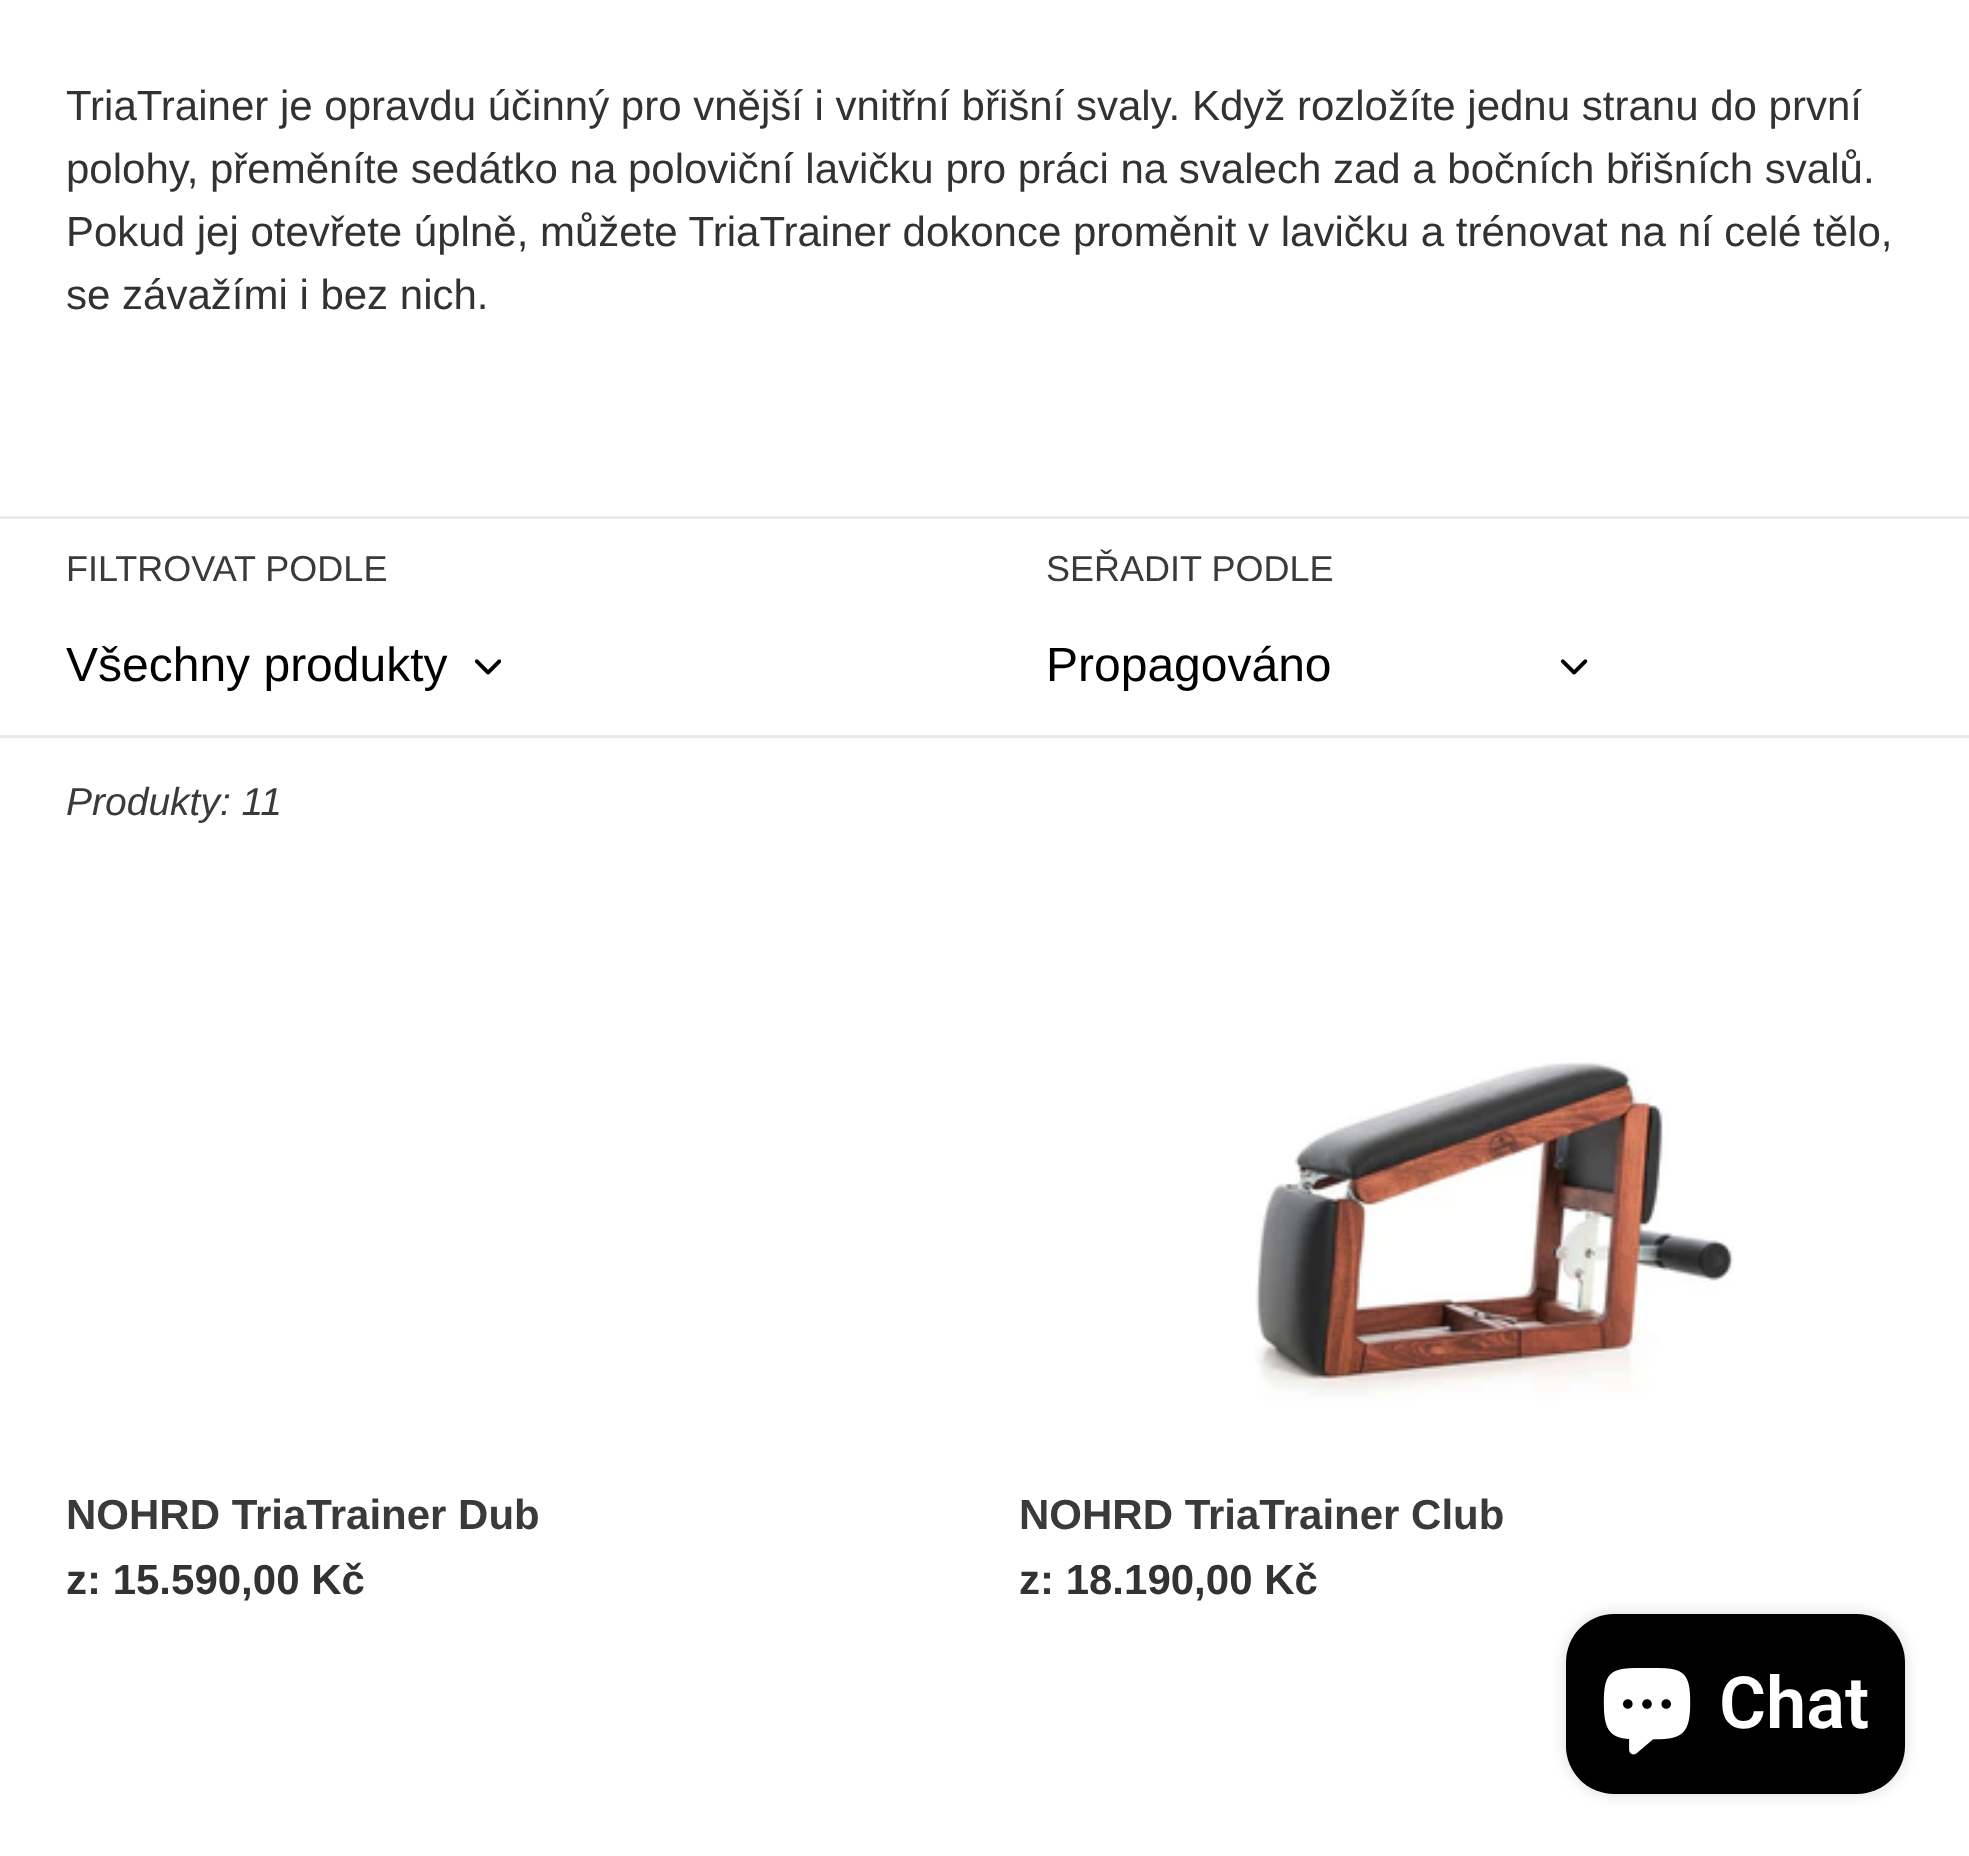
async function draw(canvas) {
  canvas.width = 1969;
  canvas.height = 1856;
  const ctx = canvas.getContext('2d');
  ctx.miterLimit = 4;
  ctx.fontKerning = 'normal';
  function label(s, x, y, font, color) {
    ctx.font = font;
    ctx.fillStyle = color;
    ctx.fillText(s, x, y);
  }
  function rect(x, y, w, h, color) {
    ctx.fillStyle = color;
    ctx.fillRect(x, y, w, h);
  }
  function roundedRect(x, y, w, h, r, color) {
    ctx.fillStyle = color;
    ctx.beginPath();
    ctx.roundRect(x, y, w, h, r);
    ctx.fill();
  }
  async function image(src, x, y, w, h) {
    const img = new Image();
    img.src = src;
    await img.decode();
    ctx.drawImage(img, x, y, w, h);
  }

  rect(0, 0, 1969, 1856, '#fff');
  label('TriaTrainer je opravdu účinný pro vnější i vnitřní břišní svaly. Když rozložíte jednu stranu do první', 66, 120, '42px Liberation Sans', '#333232');
  label('polohy, přeměníte sedátko na poloviční lavičku pro práci na svalech zad a bočních břišních svalů.', 66, 183, '42px Liberation Sans', '#333232');
  label('Pokud jej otevřete úplně, můžete TriaTrainer dokonce proměnit v lavičku a trénovat na ní celé tělo,', 66, 246, '42px Liberation Sans', '#333232');
  label('se závažími i bez nich.', 66, 309, '42px Liberation Sans', '#333232');
  rect(0, 516, 1969, 3, '#ebebeb');
  label('FILTROVAT PODLE', 66, 581, '36px Liberation Sans', '#3a3a3a');
  label('Všechny produkty', 66, 681, '48px Liberation Sans', '#000');
  await image('assets/img1.png', 474, 659, 27, 16);
  label('SEŘADIT PODLE', 1046, 581, '36px Liberation Sans', '#3a3a3a');
  label('Propagováno', 1046, 681, '48px Liberation Sans', '#000');
  await image('assets/img2.png', 1560, 659, 28, 16);
  rect(0, 735, 1969, 3, '#ebebeb');
  label('Produkty: 11', 66, 815, 'italic 39px Liberation Sans', '#3a3a3a');
  label('NOHRD TriaTrainer Dub', 66, 1529, 'bold 42px Liberation Sans', '#3a3a3a');
  label('z: 15.590,00 Kč', 66, 1594, 'bold 42px Liberation Sans', '#333232');
  await image('assets/img3.png', 1255, 1061, 480, 340);
  label('NOHRD TriaTrainer Club', 1019, 1529, 'bold 42px Liberation Sans', '#3a3a3a');
  label('z: 18.190,00 Kč', 1019, 1594, 'bold 42px Liberation Sans', '#333232');
  ctx.fillStyle = '#00000026';
  ctx.filter = 'blur(7.5px)';
  ctx.beginPath();
  ctx.roundRect(1566, 1614, 339, 180, 48);
  ctx.fill();
  ctx.filter = 'none';
  roundedRect(1566, 1614, 339, 180, 48, '#000');
  await image('assets/img4.png', 1603, 1668, 88, 87);
  label('Chat', 1719, 1728, '600 72px Roboto', '#fff');
}

draw(document.querySelector('canvas'));
